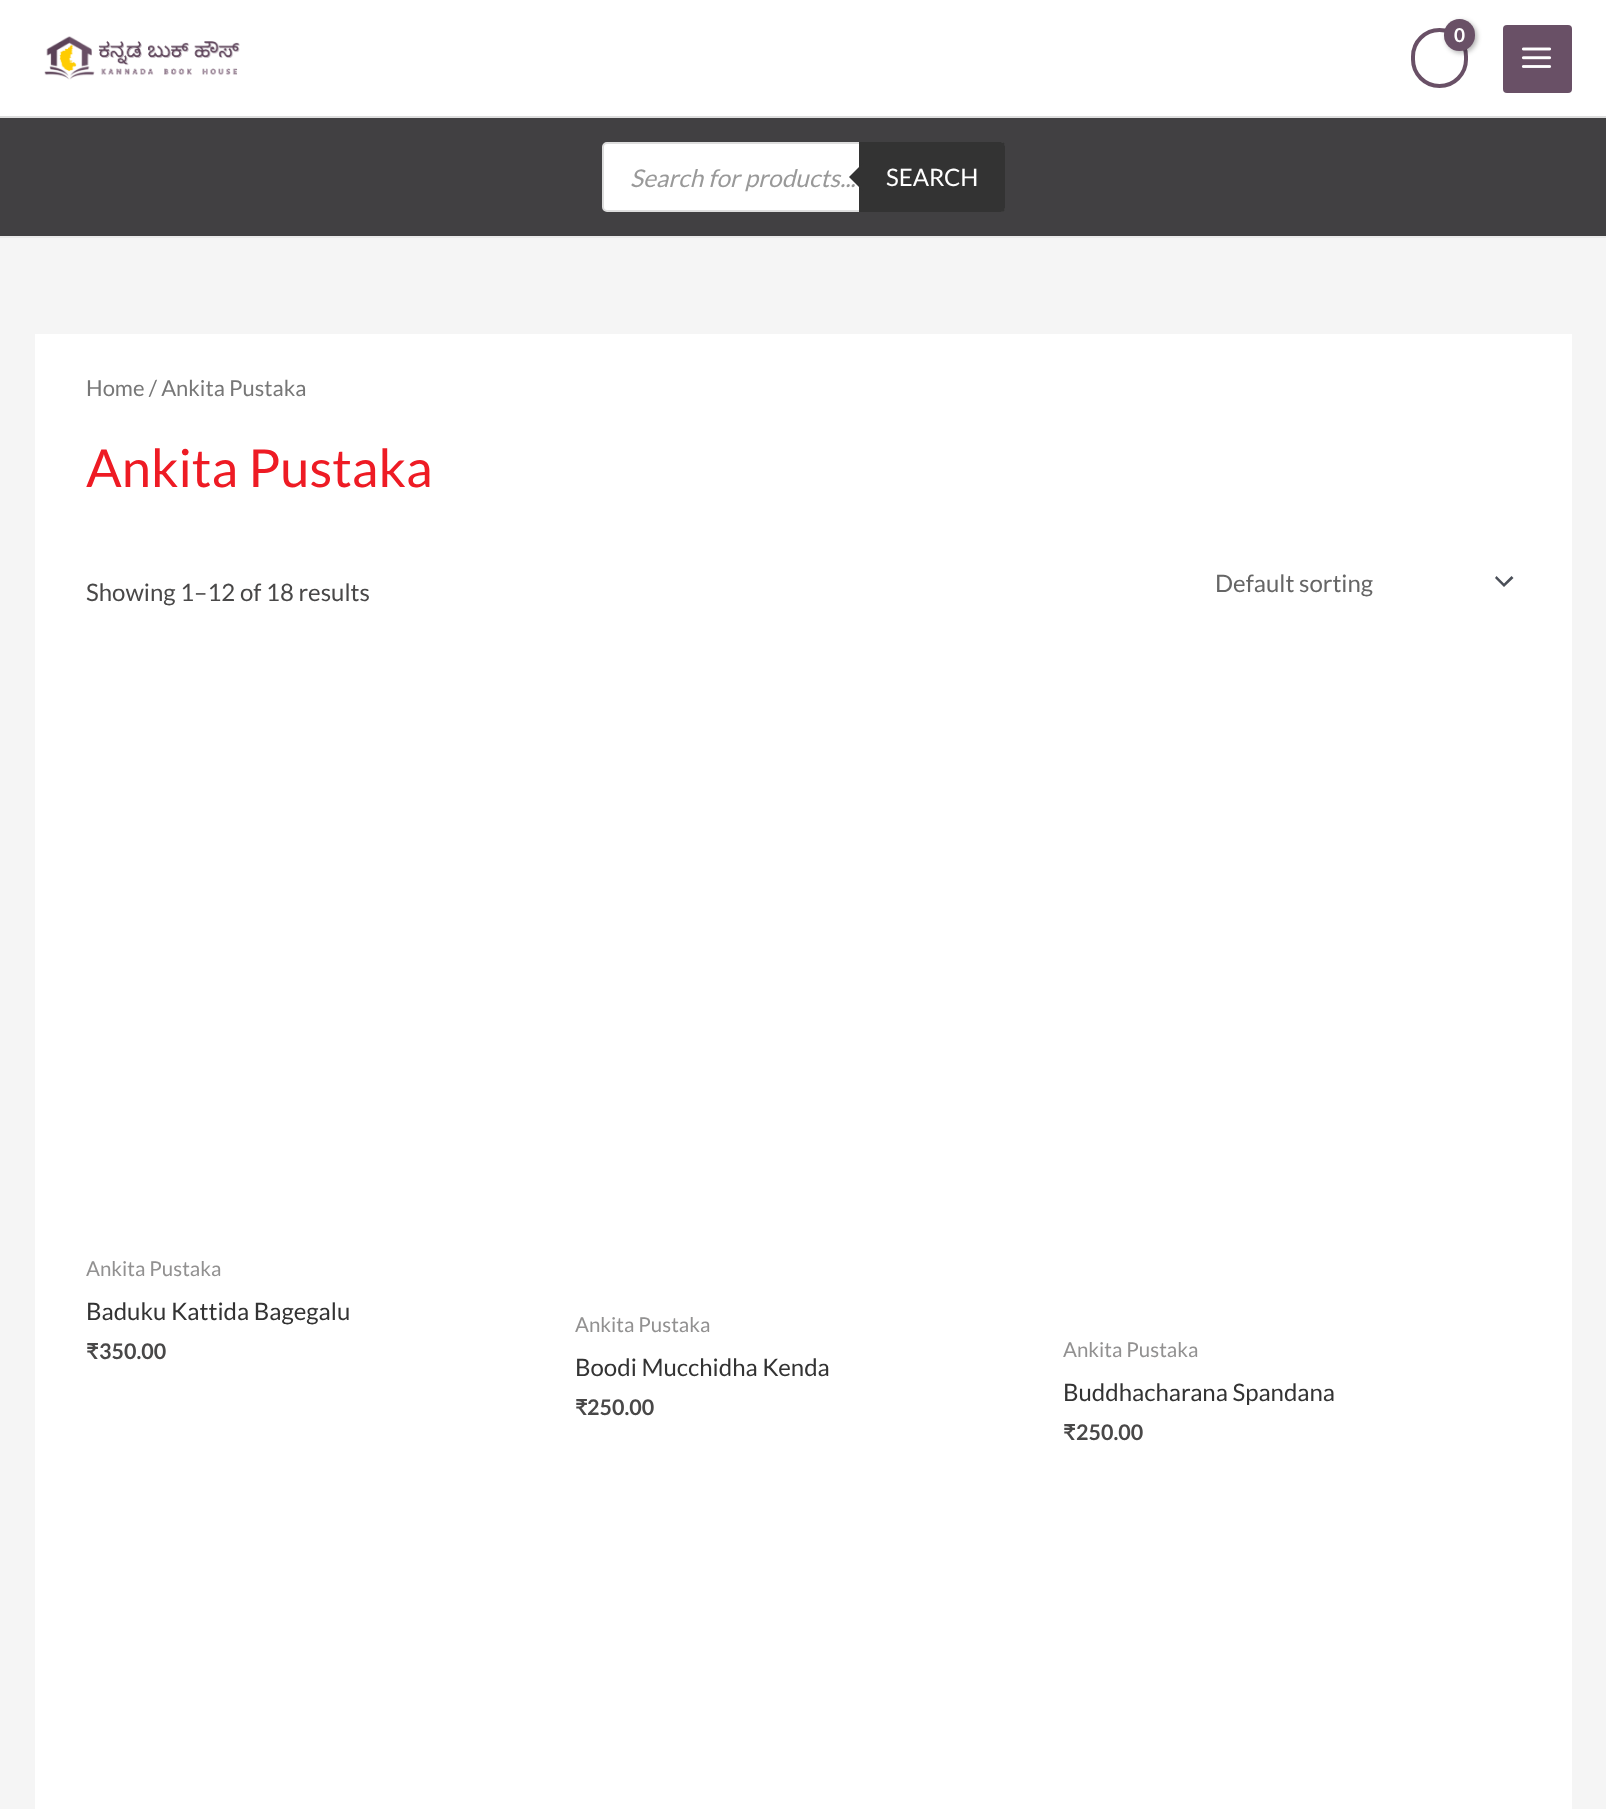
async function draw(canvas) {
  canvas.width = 1606;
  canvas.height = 1809;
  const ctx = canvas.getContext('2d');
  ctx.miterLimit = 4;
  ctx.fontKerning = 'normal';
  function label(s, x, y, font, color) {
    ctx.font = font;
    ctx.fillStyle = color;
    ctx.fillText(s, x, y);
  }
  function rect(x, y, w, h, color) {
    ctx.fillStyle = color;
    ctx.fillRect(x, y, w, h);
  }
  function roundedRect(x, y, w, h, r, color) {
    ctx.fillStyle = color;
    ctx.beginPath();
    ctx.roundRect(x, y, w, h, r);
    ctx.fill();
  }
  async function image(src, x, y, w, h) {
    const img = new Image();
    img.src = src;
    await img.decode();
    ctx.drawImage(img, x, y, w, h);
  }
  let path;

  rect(0, 0, 1606, 1809, '#f5f5f5');
  rect(0, 0, 1606, 116, '#fff');
  rect(0, 116, 1606, 2, '#ddd');
  await image('assets/img1.png', 44, 36, 196, 44);
  ctx.beginPath();
  ctx.roundRect(1413, 30, 53, 56, 26.5);
  ctx.strokeStyle = '#695066';
  ctx.lineWidth = 4;
  ctx.stroke();
  ctx.fillStyle = '#0000004d';
  ctx.filter = 'blur(2.5px)';
  ctx.beginPath();
  ctx.roundRect(1446, 21, 31, 32, 15.5);
  ctx.fill();
  ctx.filter = 'none';
  roundedRect(1444, 19, 31, 32, 15.5, '#695066');
  ctx.letterSpacing = '-1px';
  label('0', 1454, 42, 'bold 19px "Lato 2"', '#fff');
  roundedRect(1503, 25, 69, 68, 4, '#695066');
  await image('assets/img2.png', 1521, 47, 31, 21);
  rect(0, 118, 1606, 118, '#414042');
  rect(0, 236, 1606, 2, '#eaeaea');
  ctx.fillStyle = '#fff';
  ctx.beginPath();
  ctx.roundRect(603, 143, 401, 68, 4);
  ctx.fill();
  ctx.strokeStyle = '#ddd';
  ctx.lineWidth = 2;
  ctx.stroke();
  ctx.letterSpacing = '0px';
  label('Search for products...', 630, 187, 'italic 24.5px Lato', '#999');
  ctx.fillStyle = '#333';
  ctx.beginPath();
  ctx.roundRect(859, 142, 146, 70, [0, 4, 4, 0]);
  ctx.fill();
  path = new Path2D('M863 163V191L849 177Z');
  ctx.fill(path);
  label('SEARCH', 886, 186, '24px Lato', '#fff');
  rect(35, 334, 1537, 1475, '#fff');
  label('Home / Ankita Pustaka', 86, 396, '22px Lato', '#777');
  label('Ankita Pustaka', 86, 487, '52.5px Lato', '#ee1b24');
  label('Showing 1–12 of 18 results', 86, 601, '24px Lato', '#494848');
  ctx.fillStyle = '#4b4f58';
  path = new Path2D('M1495 578L1504 587L1513.5 578L1511.5 576L1504 583.5L1496.5 576Z');
  ctx.fill(path);
  label('Default sorting', 1215, 592, '24px Lato', '#666');
  label('Ankita Pustaka', 86, 1276, '20.5px Lato', '#929191');
  label('Baduku Kattida Bagegalu', 86, 1320, '24px Lato', '#333');
  label('₹', 86, 1359, 'bold 21.5px Lato', '#494848');
  label('350.00', 99, 1359, 'bold 21.5px "Lato 2"', '#494848');
  label('Ankita Pustaka', 575, 1332, '20.5px Lato', '#929191');
  label('Boodi Mucchidha Kenda', 575, 1376, '24px Lato', '#333');
  label('₹', 575, 1415, 'bold 21.5px Lato', '#494848');
  label('250.00', 587, 1415, 'bold 21.5px "Lato 2"', '#494848');
  label('Ankita Pustaka', 1063, 1357, '20.5px Lato', '#929191');
  label('Buddhacharana Spandana', 1063, 1401, '24px Lato', '#333');
  label('₹', 1063, 1440, 'bold 21.5px Lato', '#494848');
  label('250.00', 1076, 1440, 'bold 21.5px "Lato 2"', '#494848');
}

draw(document.querySelector('canvas'));
